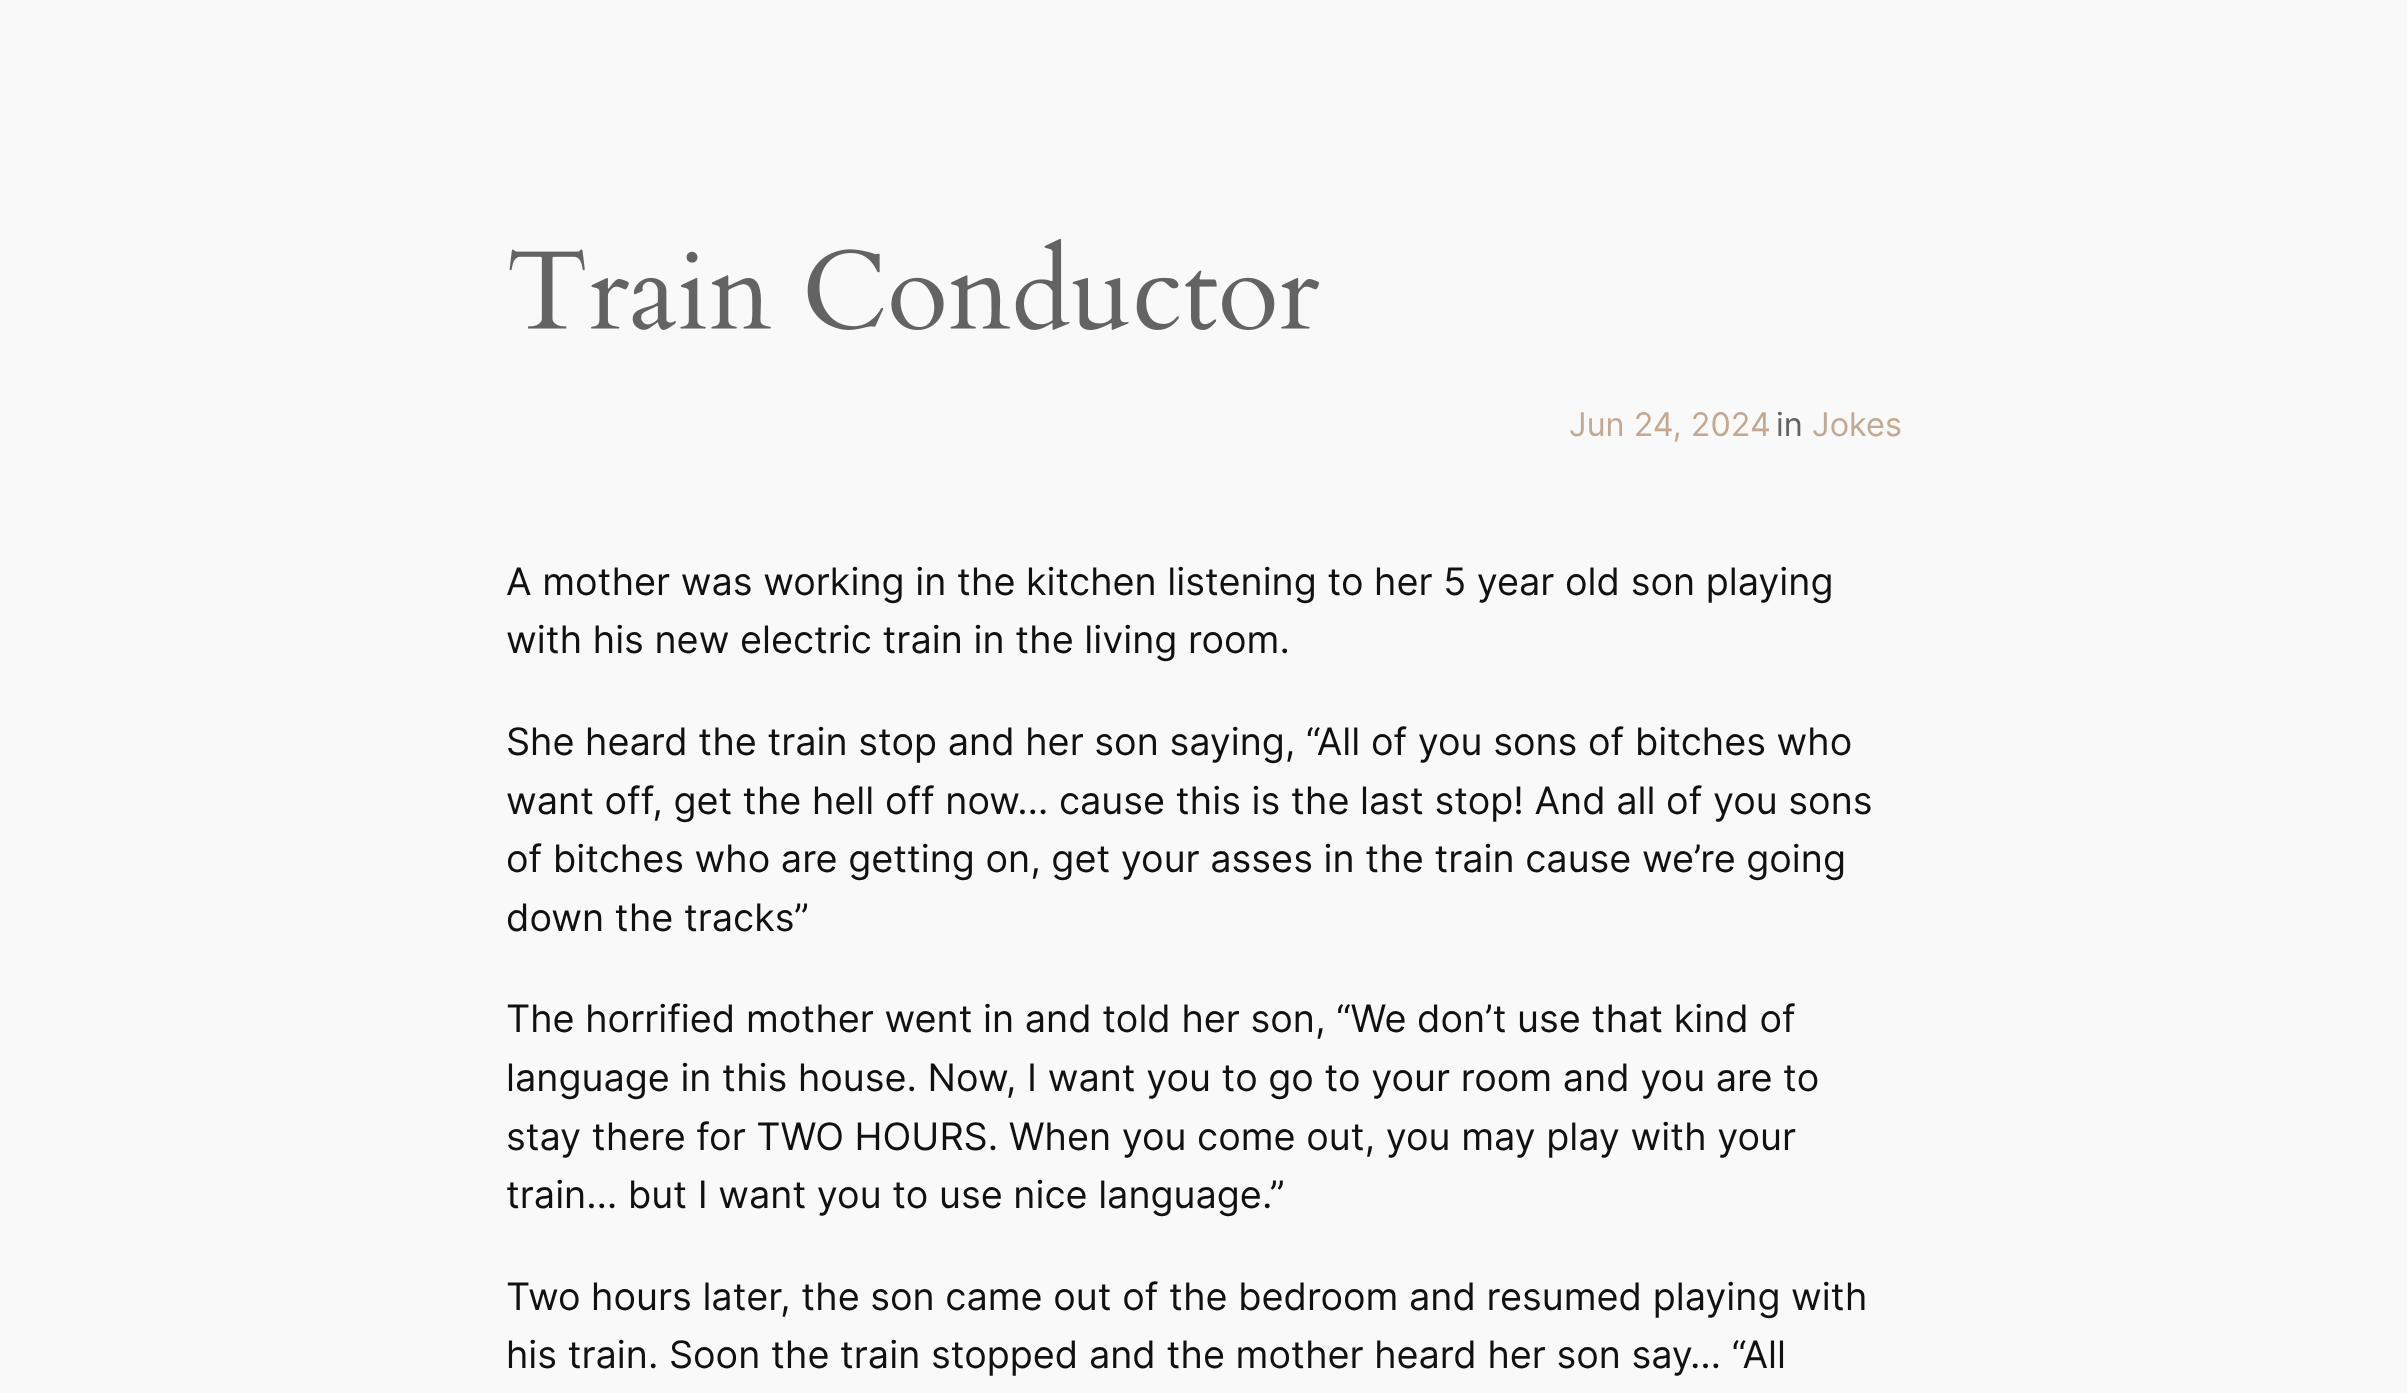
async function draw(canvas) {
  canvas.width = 2407;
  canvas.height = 1393;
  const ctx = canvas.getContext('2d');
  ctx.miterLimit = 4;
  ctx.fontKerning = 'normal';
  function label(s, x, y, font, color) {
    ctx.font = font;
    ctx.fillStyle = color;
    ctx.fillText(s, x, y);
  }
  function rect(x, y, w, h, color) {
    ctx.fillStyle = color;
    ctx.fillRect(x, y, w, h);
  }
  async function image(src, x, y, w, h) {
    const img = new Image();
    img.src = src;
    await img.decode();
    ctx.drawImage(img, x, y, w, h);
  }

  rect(0, 0, 2407, 1393, '#f9f9f9');
  await image('assets/img1.png', 509, 238, 811, 92);
  label('Jun 24, 2024', 1569, 436, '32.5px Inter', '#c2a990');
  label('in', 1776, 436, '32.5px Inter', '#636363');
  label('Jokes', 1812, 436, '32.5px Inter', '#c2a990');
  label('A mother was working in the kitchen listening to her 5 year old son playing', 506, 595, '37.8px Inter', '#111');
  label('with his new electric train in the living room.', 506, 653, '37.8px Inter', '#111');
  label('She heard the train stop and her son saying, “All of you sons of bitches who', 506, 755, '37.8px Inter', '#111');
  label('want off, get the hell off now… cause this is the last stop! And all of you sons', 506, 814, '37.8px Inter', '#111');
  label('of bitches who are getting on, get your asses in the train cause we’re going', 506, 872, '37.8px Inter', '#111');
  label('down the tracks”', 506, 931, '37.8px Inter', '#111');
  label('The horrified mother went in and told her son, “We don’t use that kind of', 506, 1032, '37.8px Inter', '#111');
  label('language in this house. Now, I want you to go to your room and you are to', 506, 1091, '37.8px Inter', '#111');
  label('stay there for TWO HOURS. When you come out, you may play with your', 506, 1150, '37.8px Inter', '#111');
  label('train… but I want you to use nice language.”', 506, 1208, '37.8px Inter', '#111');
  label('Two hours later, the son came out of the bedroom and resumed playing with', 506, 1310, '37.8px Inter', '#111');
  label('his train. Soon the train stopped and the mother heard her son say… “All', 506, 1368, '37.8px Inter', '#111');
}

draw(document.querySelector('canvas'));
